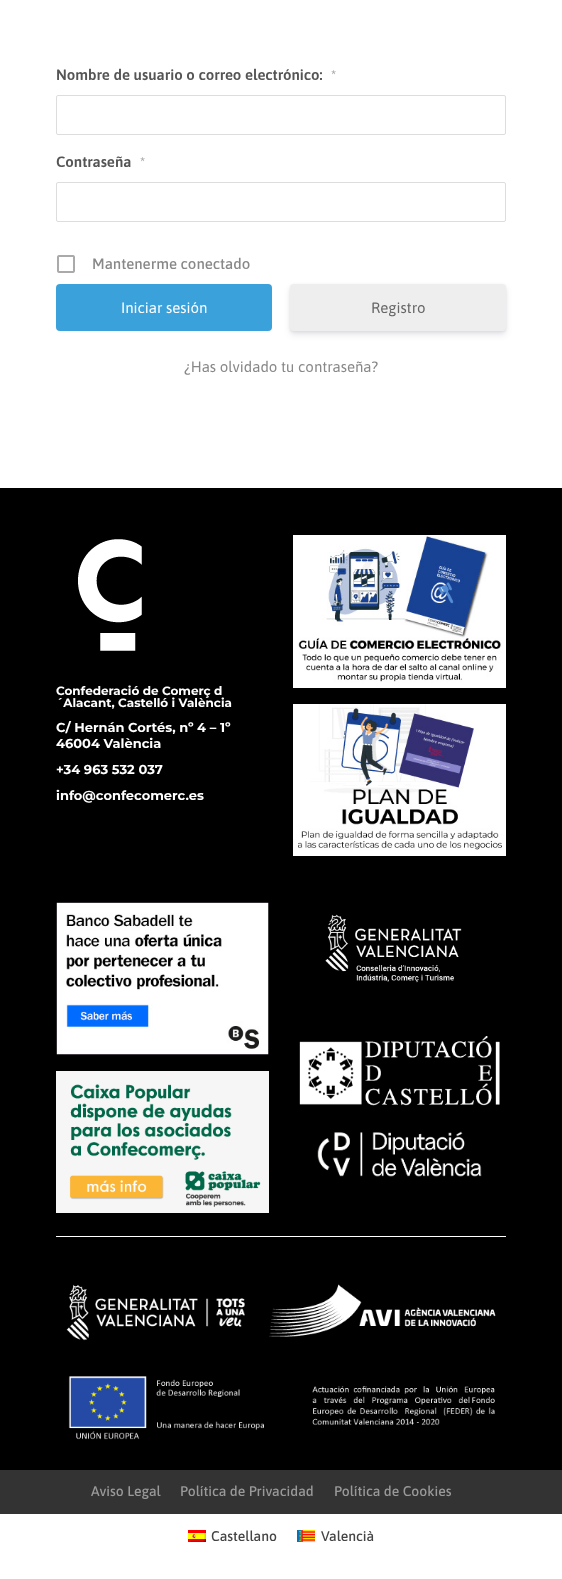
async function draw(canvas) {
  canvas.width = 562;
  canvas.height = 1579;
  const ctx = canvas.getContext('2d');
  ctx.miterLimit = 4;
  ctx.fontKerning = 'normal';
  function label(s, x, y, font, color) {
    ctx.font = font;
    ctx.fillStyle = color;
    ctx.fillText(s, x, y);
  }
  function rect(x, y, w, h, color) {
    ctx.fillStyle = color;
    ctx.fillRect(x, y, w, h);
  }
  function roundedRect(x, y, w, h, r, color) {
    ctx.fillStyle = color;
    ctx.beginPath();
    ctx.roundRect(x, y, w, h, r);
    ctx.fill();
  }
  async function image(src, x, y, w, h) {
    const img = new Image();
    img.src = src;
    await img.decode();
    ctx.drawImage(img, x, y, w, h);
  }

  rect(0, 0, 562, 1579, '#fff');
  label('Nombre de usuario o correo electrónico:', 56, 80, '600 15px Asap', '#555');
  label('*', 331, 80, '600 14px Asap', '#aaa');
  ctx.beginPath();
  ctx.roundRect(56.5, 95.5, 449, 39, 1.5);
  ctx.strokeStyle = '#ddd';
  ctx.stroke();
  label('Contraseña', 56, 167, '600 15px Asap', '#555');
  label('*', 140, 167, '600 14px Asap', '#aaa');
  ctx.beginPath();
  ctx.roundRect(56.5, 182.5, 449, 39, 1.5);
  ctx.stroke();
  await image('assets/img1.png', 57, 255, 18, 18);
  label('Mantenerme conectado', 92, 269, '500 15px Asap', '#888');
  roundedRect(56, 284, 216, 47, 4, '#3ba1da');
  label('Iniciar sesión', 121, 313, '15px Asap', '#fff');
  ctx.fillStyle = '#00000014';
  ctx.filter = 'blur(1.5px)';
  ctx.beginPath();
  ctx.roundRect(290, 285, 216, 47, 4);
  ctx.fill();
  ctx.filter = 'none';
  ctx.fillStyle = '#32325d1c';
  ctx.filter = 'blur(3px)';
  ctx.beginPath();
  ctx.roundRect(290, 288, 216, 47, 4);
  ctx.fill();
  ctx.filter = 'none';
  roundedRect(290, 284, 216, 47, 4, '#eee');
  label('Registro', 371, 313, '15px Asap', '#666');
  label('¿Has olvidado tu contraseña?', 184, 372, '15px Asap', '#888');
  rect(0, 488, 562, 982, '#000');
  await image('assets/img2.png', 78, 539, 64, 112);
  label('Confederació de Comerç d', 56, 695, 'bold 12px Montserrat', '#fff');
  label('´Alacant, Castelló i València', 56, 707, 'bold 12px Montserrat', '#fff');
  label('C/ Hernán Cortés, nº 4 – 1º', 56, 732, 'bold 13px Montserrat', '#fff');
  label('46004 València', 56, 748, 'bold 13px Montserrat', '#fff');
  label('+34 963 532 037', 56, 774, 'bold 13px Montserrat', '#fff');
  label('info@confecomerc.es', 56, 800, 'bold 13px Montserrat', '#fff');
  await image('assets/img3.png', 293, 535, 213, 153);
  await image('assets/img4.png', 293, 704, 213, 152);
  await image('assets/img5.png', 56, 902, 213, 153);
  await image('assets/img6.png', 56, 1071, 213, 142);
  await image('assets/img7.png', 325, 914, 137, 69);
  await image('assets/img8.png', 299, 1036, 201, 70);
  await image('assets/img9.png', 317, 1131, 165, 46);
  rect(56, 1236, 450, 1, '#fff');
  await image('assets/img10.png', 66, 1284, 430, 57);
  await image('assets/img11.png', 68, 1376, 427, 64);
  rect(0, 1470, 562, 44, '#333');
  label('Aviso Legal', 91, 1496, '500 14px Asap', '#999');
  label('Política de Privacidad', 180, 1496, '500 14px Asap', '#999');
  label('Política de Cookies', 334, 1496, '500 14px Asap', '#999');
  await image('assets/img12.png', 188, 1530, 18, 12);
  label('Castellano', 211, 1541, '500 14px Asap', '#444');
  await image('assets/img13.png', 297, 1530, 18, 12);
  label('Valencià', 321, 1541, '500 14px Asap', '#444');
}

draw(document.querySelector('canvas'));
